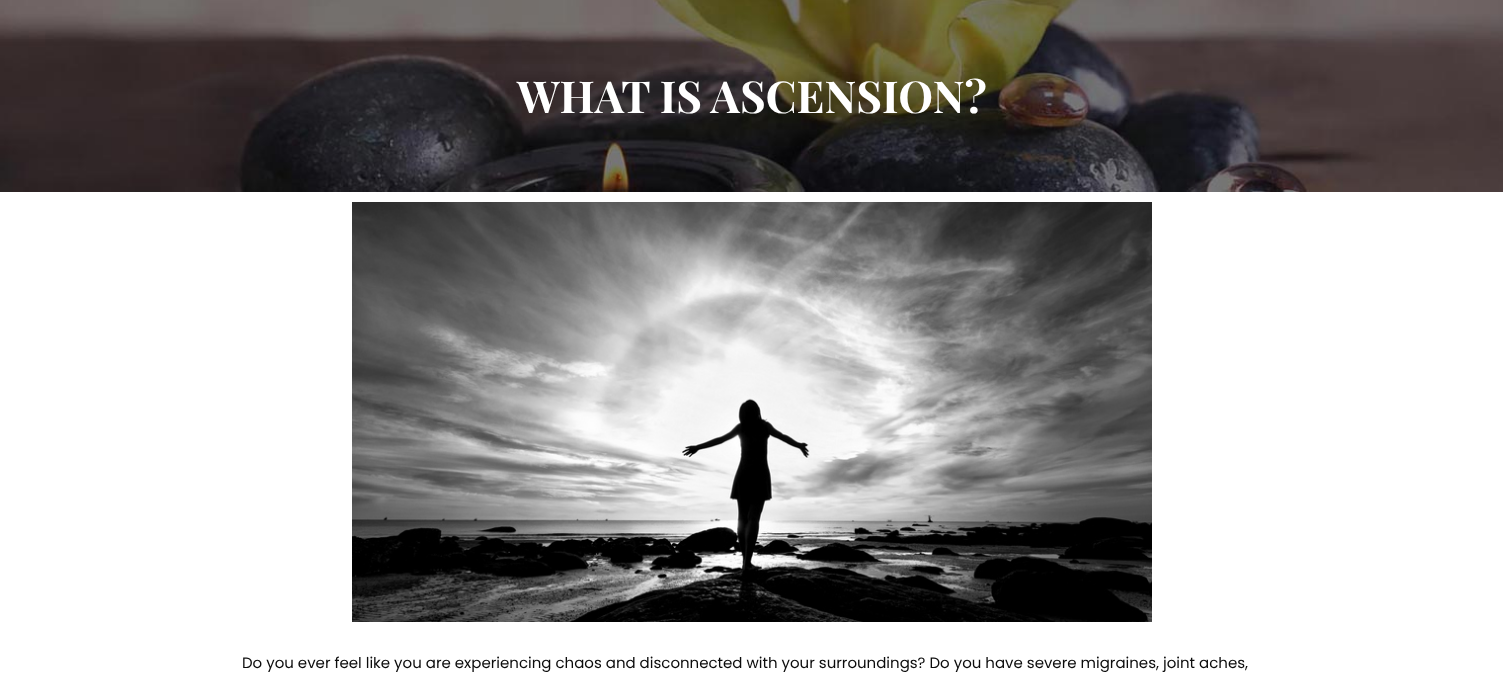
async function draw(canvas) {
  canvas.width = 1503;
  canvas.height = 676;
  const ctx = canvas.getContext('2d');
  ctx.miterLimit = 4;
  ctx.fontKerning = 'normal';
  function label(s, x, y, font, color) {
    ctx.font = font;
    ctx.fillStyle = color;
    ctx.fillText(s, x, y);
  }
  function rect(x, y, w, h, color) {
    ctx.fillStyle = color;
    ctx.fillRect(x, y, w, h);
  }
  async function image(src, x, y, w, h) {
    const img = new Image();
    img.src = src;
    await img.decode();
    ctx.drawImage(img, x, y, w, h);
  }

  rect(0, 0, 1503, 676, '#fff');
  await image('assets/img1.png', 0, 0, 1503, 192);
  label('WHAT IS ASCENSION?', 517, 113, 'bold 44px Playfair Display', '#fff');
  await image('assets/img2.png', 352, 202, 800, 420);
  label('Do you ever feel like you are experiencing chaos and disconnected with your surroundings? Do you have severe migraines, joint aches,', 242, 668, '15px Poppins', '#0c0c0c');
}

draw(document.querySelector('canvas'));
